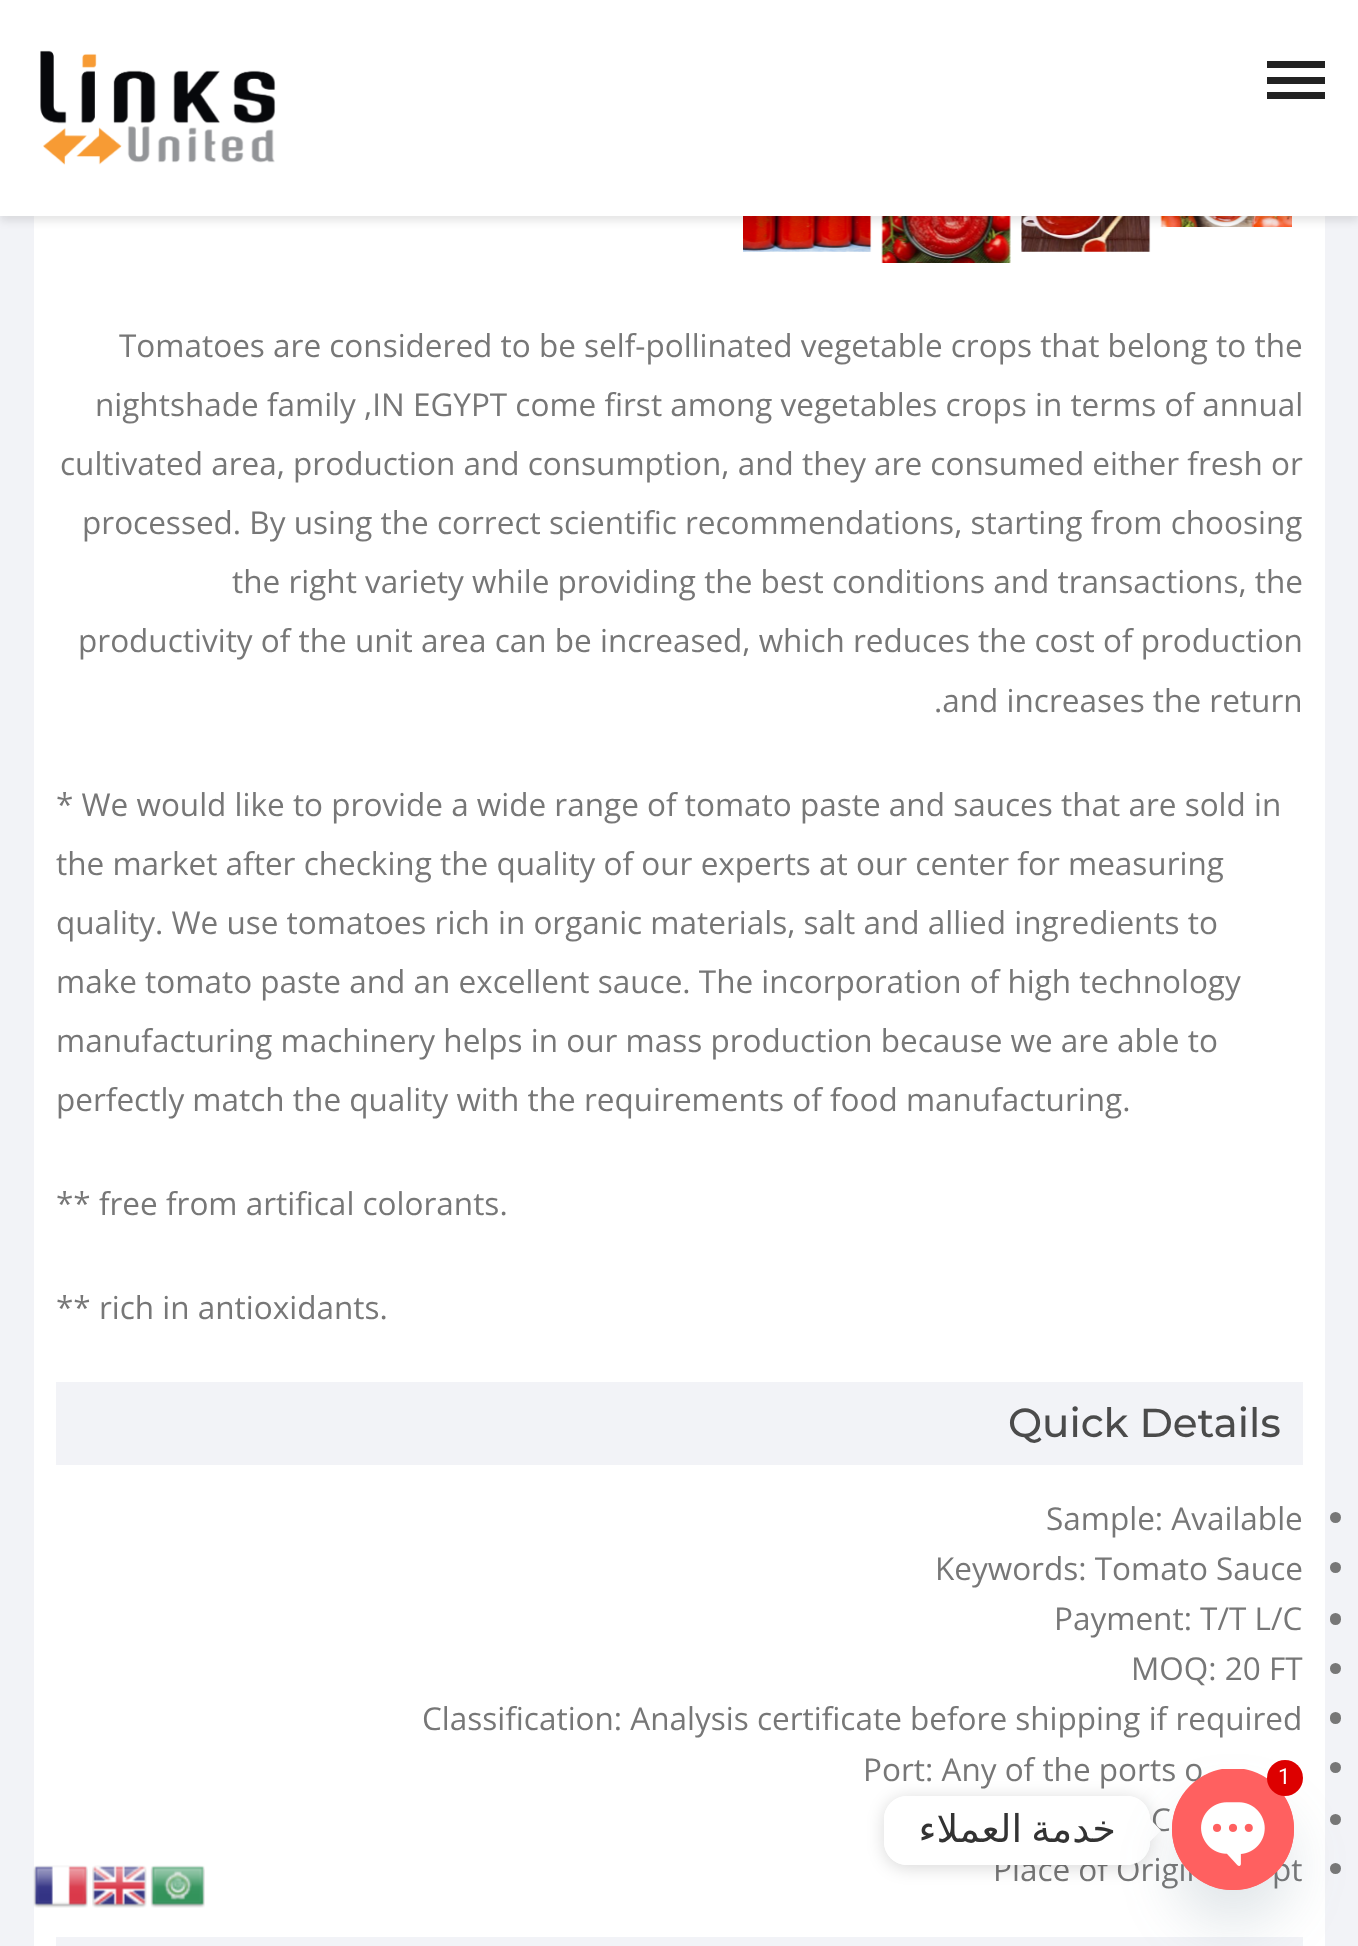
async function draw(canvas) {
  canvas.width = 1358;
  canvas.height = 1946;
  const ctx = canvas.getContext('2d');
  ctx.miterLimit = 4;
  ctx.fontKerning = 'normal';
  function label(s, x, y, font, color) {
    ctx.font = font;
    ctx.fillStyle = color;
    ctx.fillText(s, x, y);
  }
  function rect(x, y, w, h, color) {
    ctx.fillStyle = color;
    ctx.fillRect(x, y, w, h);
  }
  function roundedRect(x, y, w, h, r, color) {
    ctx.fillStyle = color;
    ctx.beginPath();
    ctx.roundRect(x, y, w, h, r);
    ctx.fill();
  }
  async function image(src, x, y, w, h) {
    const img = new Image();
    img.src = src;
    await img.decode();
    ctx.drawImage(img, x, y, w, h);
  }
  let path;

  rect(0, 0, 1358, 1946, '#f2f3f7');
  rect(34, 216, 1291, 1730, '#fff');
  await image('assets/img2.png', 743, 216, 129, 36);
  await image('assets/img3.png', 881, 216, 130, 47);
  await image('assets/img4.png', 1021, 216, 130, 36);
  await image('assets/img5.png', 1160, 216, 132, 11);
  ctx.fillStyle = '#0000001a';
  ctx.filter = 'blur(4.5px)';
  ctx.beginPath();
  ctx.rect(0, 5, 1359, 216);
  ctx.fill();
  ctx.filter = 'none';
  rect(0, 0, 1358, 216, '#fff');
  await image('assets/img1.png', 40, 50, 236, 115);
  rect(1267, 61, 58, 7, '#222');
  rect(1267, 77, 58, 7, '#222');
  rect(1267, 92, 58, 7, '#222');
  label('Tomatoes are considered to be self-pollinated vegetable crops that belong to the', 119, 357, '31.5px Open Sans', '#777');
  label('nightshade family ,IN EGYPT come first among vegetables crops in terms of annual', 95, 416, '31.5px Open Sans', '#777');
  label('cultivated area, production and consumption, and they are consumed either fresh or', 60, 475, '31.5px Open Sans', '#777');
  label('processed. By using the correct scientific recommendations, starting from choosing', 82, 534, '31.5px Open Sans', '#777');
  label('the right variety while providing the best conditions and transactions, the', 232, 593, '31.5px Open Sans', '#777');
  label('productivity of the unit area can be increased, which reduces the cost of production', 78, 652, '31.5px Open Sans', '#777');
  label('.and increases the return', 934, 712, '31.5px Open Sans', '#777');
  label('* We would like to provide a wide range of tomato paste and sauces that are sold in', 56, 816, '31.5px Open Sans', '#777');
  label('the market after checking the quality of our experts at our center for measuring', 56, 875, '31.5px Open Sans', '#777');
  label('quality. We use tomatoes rich in organic materials, salt and allied ingredients to', 56, 934, '31.5px Open Sans', '#777');
  label('make tomato paste and an excellent sauce. The incorporation of high technology', 56, 993, '31.5px Open Sans', '#777');
  label('manufacturing machinery helps in our mass production because we are able to', 56, 1052, '31.5px Open Sans', '#777');
  label('perfectly match the quality with the requirements of food manufacturing.', 56, 1111, '31.5px Open Sans', '#777');
  label('** free from artifical colorants.', 56, 1215, '31.5px Open Sans', '#777');
  label('** rich in antioxidants.', 56, 1319, '31.5px Open Sans', '#777');
  rect(56, 1382, 1247, 83, '#f2f3f7');
  label('Quick Details', 1008, 1437, '500 40.5px Montserrat', '#4b4b4b');
  label('Sample: Available', 1046, 1530, '31.5px Open Sans', '#777');
  ctx.beginPath();
  ctx.arc(1335.5, 1517.5, 5.5, 0, 2 * Math.PI);
  ctx.fill();
  label('Keywords: Tomato Sauce', 935, 1580, '31.5px Open Sans', '#777');
  ctx.beginPath();
  ctx.arc(1335.5, 1567.5, 5.5, 0, 2 * Math.PI);
  ctx.fill();
  label('Payment: T/T L/C', 1054, 1630, '31.5px Open Sans', '#777');
  roundedRect(1330, 1613, 11, 12, 5.5, '#777');
  label('MOQ: 20 FT', 1131, 1680, '31.5px Open Sans', '#777');
  ctx.beginPath();
  ctx.arc(1335.5, 1668.5, 5.5, 0, 2 * Math.PI);
  ctx.fill();
  label('Classification: Analysis certificate before shipping if required', 422, 1730, '31.5px Open Sans', '#777');
  roundedRect(1330, 1712, 11, 12, 5.5, '#777');
  label('Port: Any of the ports o', 863, 1781, '31.5px Open Sans', '#777');
  ctx.beginPath();
  ctx.arc(1335.5, 1767.5, 5.5, 0, 2 * Math.PI);
  ctx.fill();
  label('C', 1151, 1831, '31.5px Open Sans', '#777');
  ctx.beginPath();
  ctx.arc(1335.5, 1819.5, 5.5, 0, 2 * Math.PI);
  ctx.fill();
  label('Place of Origin', 993, 1881, '31.5px Open Sans', '#777');
  label('pt', 1272, 1881, '31.5px Open Sans', '#777');
  ctx.beginPath();
  ctx.arc(1335.5, 1868.5, 5.5, 0, 2 * Math.PI);
  ctx.fill();
  rect(56, 1937, 1247, 9, '#f2f3f7');
  ctx.save();
  path = new Path2D('M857 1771H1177V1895H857ZM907 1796H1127C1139.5 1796 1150 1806.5 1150 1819V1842C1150 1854.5 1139.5 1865 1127 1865H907C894.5 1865 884 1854.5 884 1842V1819C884 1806.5 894.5 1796 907 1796Z');
  ctx.clip(path, 'evenodd');
  ctx.fillStyle = '#00000026';
  ctx.filter = 'blur(8.5px)';
  ctx.beginPath();
  ctx.roundRect(884, 1798, 266, 70, 23);
  ctx.fill();
  ctx.filter = 'none';
  ctx.restore();
  roundedRect(884, 1796, 266, 69, 23, '#fff');
  path = new Path2D('M1150 1841.5V1819L1161 1830.5Z');
  ctx.fill(path);
  ctx.fillStyle = '#49687e29';
  ctx.filter = 'blur(27px)';
  ctx.beginPath();
  ctx.roundRect(1172, 1805, 122, 121, 60.5);
  ctx.fill();
  ctx.filter = 'none';
  roundedRect(1172, 1769, 122, 121, 60.5, '#ff6060');
  await image('assets/img6.png', 1172, 1769, 122, 121);
  ctx.fillStyle = '#d00';
  ctx.beginPath();
  ctx.arc(1285, 1778, 18, 0, 2 * Math.PI);
  ctx.fill();
  label('1', 1278, 1784, '22px Roboto', '#fff');
  ctx.wordSpacing = '-3px';
  ctx.direction = 'rtl';
  label('خدمة العملاء', 1116, 1842, '38.25px DejaVu Sans', '#333');
  await image('assets/img7.png', 33, 1865, 55, 43);
  await image('assets/img8.png', 92, 1865, 55, 43);
  await image('assets/img9.png', 150, 1865, 55, 43);
}

draw(document.querySelector('canvas'));
